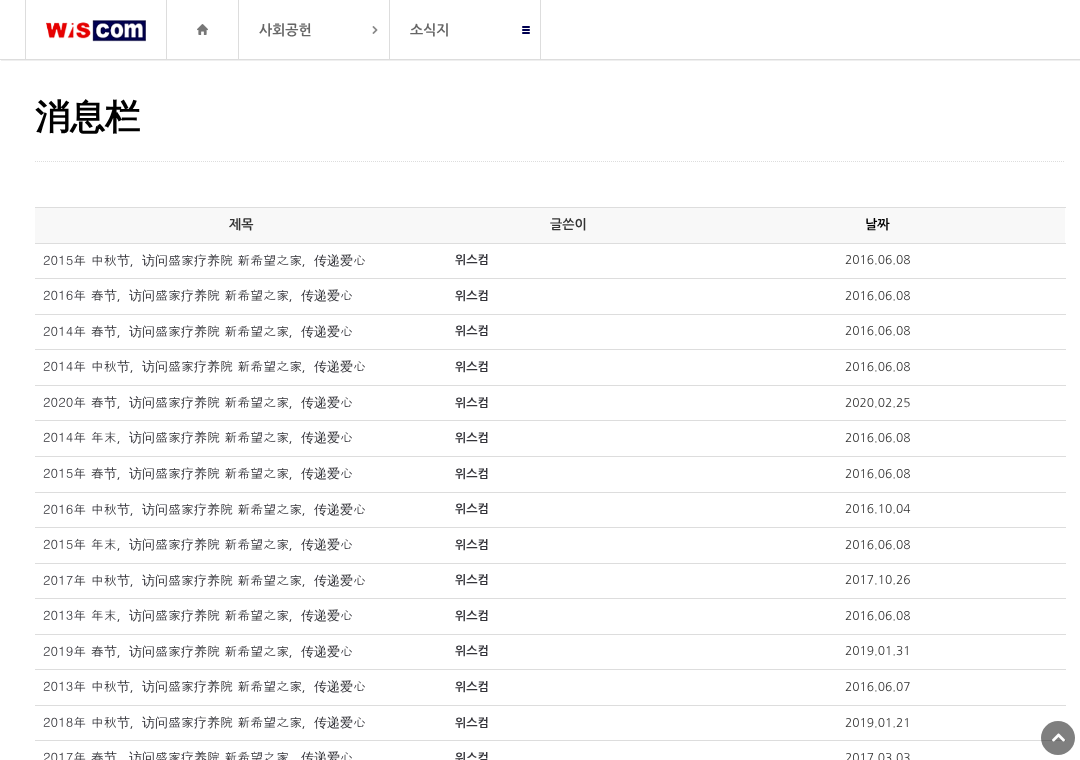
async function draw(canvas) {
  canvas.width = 1080;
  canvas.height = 760;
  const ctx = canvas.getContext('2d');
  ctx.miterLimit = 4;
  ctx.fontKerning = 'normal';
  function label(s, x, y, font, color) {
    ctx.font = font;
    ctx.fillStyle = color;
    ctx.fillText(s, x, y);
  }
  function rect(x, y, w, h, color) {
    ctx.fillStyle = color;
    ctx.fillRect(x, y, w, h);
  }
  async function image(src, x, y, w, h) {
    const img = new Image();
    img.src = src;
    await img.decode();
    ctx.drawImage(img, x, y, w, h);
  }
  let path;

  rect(0, 0, 1080, 760, '#fff');
  ctx.save();
  ctx.beginPath();
  ctx.rect(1, 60, 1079, 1);
  ctx.clip();
  ctx.fillStyle = '#6464641a';
  ctx.filter = 'blur(0.5px)';
  ctx.beginPath();
  ctx.rect(1, 1, 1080, 60);
  ctx.fill();
  ctx.filter = 'none';
  ctx.restore();
  rect(0, 59, 1080, 1, '#ddd');
  rect(25, 0, 1, 59, '#ddd');
  await image('assets/img1.png', 46, 20, 100, 22);
  rect(238, 0, 1, 60, '#ddd');
  rect(166, 0, 1, 60, '#ddd');
  await image('assets/img2.png', 197, 24, 11, 11);
  rect(389, 0, 1, 60, '#ddd');
  label('사회공헌', 259, 35, 'bold 14px NanumGothic', '#666');
  await image('assets/img3.png', 372, 26, 6, 8);
  rect(540, 0, 1, 60, '#ddd');
  label('소식지', 410, 35, 'bold 14px NanumGothic', '#666');
  await image('assets/img4.png', 522, 26, 8, 8);
  path = new Path2D('M35 161.5H1065');
  ctx.strokeStyle = '#ddd';
  ctx.setLineDash([1, 1]);
  ctx.stroke(path);
  label('消息栏', 35, 129, 'bold 35px WenQuanYi Zen Hei', '#000');
  rect(35, 208, 1030, 35, '#f8f8f8');
  rect(35, 207, 1031, 1, '#ddd');
  rect(35, 243, 1031, 1, '#ddd');
  label('제목', 229, 229, 'bold 13px NanumGothic', '#333');
  label('글쓴이', 550, 229, 'bold 13px NanumGothic', '#333');
  label('날짜', 865, 229, 'bold 13px NanumGothic', '#000');
  label('2015年 中秋', 43, 265, '13px Dotum', '#34343a');
  label('节', 117, 265, '500 13px WenQuanYi Zen Hei', '#34343a');
  label('访问', 142, 265, '500 13px WenQuanYi Zen Hei', '#34343a');
  label('盛家', 168, 265, '13px Dotum', '#34343a');
  label('疗养', 194, 265, '500 13px WenQuanYi Zen Hei', '#34343a');
  label('院 新希望之家', 220, 265, '13px Dotum', '#34343a');
  label('传递爱', 314, 265, '500 13px WenQuanYi Zen Hei', '#34343a');
  label('心', 353, 265, '13px Dotum', '#34343a');
  label('，', 130, 265, '13px NanumGothic', '#34343a');
  label('，', 302, 265, '13px NanumGothic', '#34343a');
  label('위스컴', 455, 264, 'bold 12px NanumGothic', '#34343a');
  label('2016.06.08', 845, 264, '12px NanumGothic', '#333');
  label('2016年 春', 43, 300, '13px Dotum', '#34343a');
  label('节', 104, 300, '500 13px WenQuanYi Zen Hei', '#34343a');
  label('访问', 129, 300, '500 13px WenQuanYi Zen Hei', '#34343a');
  label('盛家', 155, 300, '13px Dotum', '#34343a');
  label('疗养', 181, 300, '500 13px WenQuanYi Zen Hei', '#34343a');
  label('院 新希望之家', 207, 300, '13px Dotum', '#34343a');
  label('传递爱', 301, 300, '500 13px WenQuanYi Zen Hei', '#34343a');
  label('心', 340, 300, '13px Dotum', '#34343a');
  label('，', 117, 300, '13px NanumGothic', '#34343a');
  label('，', 289, 300, '13px NanumGothic', '#34343a');
  label('위스컴', 455, 300, 'bold 12px NanumGothic', '#34343a');
  rect(35, 278, 1031, 1, '#ddd');
  label('2016.06.08', 845, 300, '12px NanumGothic', '#333');
  label('2014年 春', 43, 336, '13px Dotum', '#34343a');
  label('节', 104, 336, '500 13px WenQuanYi Zen Hei', '#34343a');
  label('访问', 129, 336, '500 13px WenQuanYi Zen Hei', '#34343a');
  label('盛家', 155, 336, '13px Dotum', '#34343a');
  label('疗养', 181, 336, '500 13px WenQuanYi Zen Hei', '#34343a');
  label('院 新希望之家', 207, 336, '13px Dotum', '#34343a');
  label('传递爱', 301, 336, '500 13px WenQuanYi Zen Hei', '#34343a');
  label('心', 340, 336, '13px Dotum', '#34343a');
  label('，', 117, 336, '13px NanumGothic', '#34343a');
  label('，', 289, 336, '13px NanumGothic', '#34343a');
  label('위스컴', 455, 335, 'bold 12px NanumGothic', '#34343a');
  rect(35, 314, 1031, 1, '#ddd');
  label('2016.06.08', 845, 335, '12px NanumGothic', '#333');
  label('2014年 中秋', 43, 371, '13px Dotum', '#34343a');
  label('节', 117, 371, '500 13px WenQuanYi Zen Hei', '#34343a');
  label('访问', 142, 371, '500 13px WenQuanYi Zen Hei', '#34343a');
  label('盛家', 168, 371, '13px Dotum', '#34343a');
  label('疗养', 194, 371, '500 13px WenQuanYi Zen Hei', '#34343a');
  label('院 新希望之家', 220, 371, '13px Dotum', '#34343a');
  label('传递爱', 314, 371, '500 13px WenQuanYi Zen Hei', '#34343a');
  label('心', 353, 371, '13px Dotum', '#34343a');
  label('，', 130, 371, '13px NanumGothic', '#34343a');
  label('，', 302, 371, '13px NanumGothic', '#34343a');
  label('위스컴', 455, 371, 'bold 12px NanumGothic', '#34343a');
  rect(35, 349, 1031, 1, '#ddd');
  label('2016.06.08', 845, 371, '12px NanumGothic', '#333');
  label('2020年 春', 43, 407, '13px Dotum', '#34343a');
  label('节', 104, 407, '500 13px WenQuanYi Zen Hei', '#34343a');
  label('访问', 129, 407, '500 13px WenQuanYi Zen Hei', '#34343a');
  label('盛家', 155, 407, '13px Dotum', '#34343a');
  label('疗养', 181, 407, '500 13px WenQuanYi Zen Hei', '#34343a');
  label('院 新希望之家', 207, 407, '13px Dotum', '#34343a');
  label('传递爱', 301, 407, '500 13px WenQuanYi Zen Hei', '#34343a');
  label('心', 340, 407, '13px Dotum', '#34343a');
  label('，', 117, 407, '13px NanumGothic', '#34343a');
  label('，', 289, 407, '13px NanumGothic', '#34343a');
  label('위스컴', 455, 407, 'bold 12px NanumGothic', '#34343a');
  rect(35, 385, 1031, 1, '#ddd');
  label('2020.02.25', 845, 407, '12px NanumGothic', '#333');
  label('2014年 年末', 43, 442, '13px Dotum', '#34343a');
  label('访问', 129, 442, '500 13px WenQuanYi Zen Hei', '#34343a');
  label('盛家', 155, 442, '13px Dotum', '#34343a');
  label('疗养', 181, 442, '500 13px WenQuanYi Zen Hei', '#34343a');
  label('院 新希望之家', 207, 442, '13px Dotum', '#34343a');
  label('传递爱', 301, 442, '500 13px WenQuanYi Zen Hei', '#34343a');
  label('心', 340, 442, '13px Dotum', '#34343a');
  label('，', 117, 442, '13px NanumGothic', '#34343a');
  label('，', 289, 442, '13px NanumGothic', '#34343a');
  label('위스컴', 455, 442, 'bold 12px NanumGothic', '#34343a');
  rect(35, 420, 1031, 1, '#ddd');
  label('2016.06.08', 845, 442, '12px NanumGothic', '#333');
  label('2015年 春', 43, 478, '13px Dotum', '#34343a');
  label('节', 104, 478, '500 13px WenQuanYi Zen Hei', '#34343a');
  label('访问', 129, 478, '500 13px WenQuanYi Zen Hei', '#34343a');
  label('盛家', 155, 478, '13px Dotum', '#34343a');
  label('疗养', 181, 478, '500 13px WenQuanYi Zen Hei', '#34343a');
  label('院 新希望之家', 207, 478, '13px Dotum', '#34343a');
  label('传递爱', 301, 478, '500 13px WenQuanYi Zen Hei', '#34343a');
  label('心', 340, 478, '13px Dotum', '#34343a');
  label('，', 117, 478, '13px NanumGothic', '#34343a');
  label('，', 289, 478, '13px NanumGothic', '#34343a');
  label('위스컴', 455, 478, 'bold 12px NanumGothic', '#34343a');
  rect(35, 456, 1031, 1, '#ddd');
  label('2016.06.08', 845, 478, '12px NanumGothic', '#333');
  label('2016年 中秋', 43, 514, '13px Dotum', '#34343a');
  label('节', 117, 514, '500 13px WenQuanYi Zen Hei', '#34343a');
  label('访问', 142, 514, '500 13px WenQuanYi Zen Hei', '#34343a');
  label('盛家', 168, 514, '13px Dotum', '#34343a');
  label('疗养', 194, 514, '500 13px WenQuanYi Zen Hei', '#34343a');
  label('院 新希望之家', 220, 514, '13px Dotum', '#34343a');
  label('传递爱', 314, 514, '500 13px WenQuanYi Zen Hei', '#34343a');
  label('心', 353, 514, '13px Dotum', '#34343a');
  label('，', 130, 514, '13px NanumGothic', '#34343a');
  label('，', 302, 514, '13px NanumGothic', '#34343a');
  label('위스컴', 455, 513, 'bold 12px NanumGothic', '#34343a');
  rect(35, 492, 1031, 1, '#ddd');
  label('2016.10.04', 845, 513, '12px NanumGothic', '#333');
  label('2015年 年末', 43, 549, '13px Dotum', '#34343a');
  label('访问', 129, 549, '500 13px WenQuanYi Zen Hei', '#34343a');
  label('盛家', 155, 549, '13px Dotum', '#34343a');
  label('疗养', 181, 549, '500 13px WenQuanYi Zen Hei', '#34343a');
  label('院 新希望之家', 207, 549, '13px Dotum', '#34343a');
  label('传递爱', 301, 549, '500 13px WenQuanYi Zen Hei', '#34343a');
  label('心', 340, 549, '13px Dotum', '#34343a');
  label('，', 117, 549, '13px NanumGothic', '#34343a');
  label('，', 289, 549, '13px NanumGothic', '#34343a');
  label('위스컴', 455, 549, 'bold 12px NanumGothic', '#34343a');
  rect(35, 527, 1031, 1, '#ddd');
  label('2016.06.08', 845, 549, '12px NanumGothic', '#333');
  label('2017年 中秋', 43, 585, '13px Dotum', '#34343a');
  label('节', 117, 585, '500 13px WenQuanYi Zen Hei', '#34343a');
  label('访问', 142, 585, '500 13px WenQuanYi Zen Hei', '#34343a');
  label('盛家', 168, 585, '13px Dotum', '#34343a');
  label('疗养', 194, 585, '500 13px WenQuanYi Zen Hei', '#34343a');
  label('院 新希望之家', 220, 585, '13px Dotum', '#34343a');
  label('传递爱', 314, 585, '500 13px WenQuanYi Zen Hei', '#34343a');
  label('心', 353, 585, '13px Dotum', '#34343a');
  label('，', 130, 585, '13px NanumGothic', '#34343a');
  label('，', 302, 585, '13px NanumGothic', '#34343a');
  label('위스컴', 455, 584, 'bold 12px NanumGothic', '#34343a');
  rect(35, 563, 1031, 1, '#ddd');
  label('2017.10.26', 845, 584, '12px NanumGothic', '#333');
  label('2013年 年末', 43, 620, '13px Dotum', '#34343a');
  label('访问', 129, 620, '500 13px WenQuanYi Zen Hei', '#34343a');
  label('盛家', 155, 620, '13px Dotum', '#34343a');
  label('疗养', 181, 620, '500 13px WenQuanYi Zen Hei', '#34343a');
  label('院 新希望之家', 207, 620, '13px Dotum', '#34343a');
  label('传递爱', 301, 620, '500 13px WenQuanYi Zen Hei', '#34343a');
  label('心', 340, 620, '13px Dotum', '#34343a');
  label('，', 117, 620, '13px NanumGothic', '#34343a');
  label('，', 289, 620, '13px NanumGothic', '#34343a');
  label('위스컴', 455, 620, 'bold 12px NanumGothic', '#34343a');
  rect(35, 598, 1031, 1, '#ddd');
  label('2016.06.08', 845, 620, '12px NanumGothic', '#333');
  label('2019年 春', 43, 656, '13px Dotum', '#34343a');
  label('节', 104, 656, '500 13px WenQuanYi Zen Hei', '#34343a');
  label('访问', 129, 656, '500 13px WenQuanYi Zen Hei', '#34343a');
  label('盛家', 155, 656, '13px Dotum', '#34343a');
  label('疗养', 181, 656, '500 13px WenQuanYi Zen Hei', '#34343a');
  label('院 新希望之家', 207, 656, '13px Dotum', '#34343a');
  label('传递爱', 301, 656, '500 13px WenQuanYi Zen Hei', '#34343a');
  label('心', 340, 656, '13px Dotum', '#34343a');
  label('，', 117, 656, '13px NanumGothic', '#34343a');
  label('，', 289, 656, '13px NanumGothic', '#34343a');
  label('위스컴', 455, 655, 'bold 12px NanumGothic', '#34343a');
  rect(35, 634, 1031, 1, '#ddd');
  label('2019.01.31', 845, 655, '12px NanumGothic', '#333');
  label('2013年 中秋', 43, 691, '13px Dotum', '#34343a');
  label('节', 117, 691, '500 13px WenQuanYi Zen Hei', '#34343a');
  label('访问', 142, 691, '500 13px WenQuanYi Zen Hei', '#34343a');
  label('盛家', 168, 691, '13px Dotum', '#34343a');
  label('疗养', 194, 691, '500 13px WenQuanYi Zen Hei', '#34343a');
  label('院 新希望之家', 220, 691, '13px Dotum', '#34343a');
  label('传递爱', 314, 691, '500 13px WenQuanYi Zen Hei', '#34343a');
  label('心', 353, 691, '13px Dotum', '#34343a');
  label('，', 130, 691, '13px NanumGothic', '#34343a');
  label('，', 302, 691, '13px NanumGothic', '#34343a');
  label('위스컴', 455, 691, 'bold 12px NanumGothic', '#34343a');
  rect(35, 669, 1031, 1, '#ddd');
  label('2016.06.07', 845, 691, '12px NanumGothic', '#333');
  label('2018年 中秋', 43, 727, '13px Dotum', '#34343a');
  label('节', 117, 727, '500 13px WenQuanYi Zen Hei', '#34343a');
  label('访问', 142, 727, '500 13px WenQuanYi Zen Hei', '#34343a');
  label('盛家', 168, 727, '13px Dotum', '#34343a');
  label('疗养', 194, 727, '500 13px WenQuanYi Zen Hei', '#34343a');
  label('院 新希望之家', 220, 727, '13px Dotum', '#34343a');
  label('传递爱', 314, 727, '500 13px WenQuanYi Zen Hei', '#34343a');
  label('心', 353, 727, '13px Dotum', '#34343a');
  label('，', 130, 727, '13px NanumGothic', '#34343a');
  label('，', 302, 727, '13px NanumGothic', '#34343a');
  label('위스컴', 455, 727, 'bold 12px NanumGothic', '#34343a');
  rect(35, 705, 1031, 1, '#ddd');
  label('2019.01.21', 845, 727, '12px NanumGothic', '#333');
  label('2017年 春', 43, 762, '13px Dotum', '#34343a');
  label('节', 104, 762, '500 13px WenQuanYi Zen Hei', '#34343a');
  label('访问', 129, 762, '500 13px WenQuanYi Zen Hei', '#34343a');
  label('盛家', 155, 762, '13px Dotum', '#34343a');
  label('疗养', 181, 762, '500 13px WenQuanYi Zen Hei', '#34343a');
  label('院 新希望之家', 207, 762, '13px Dotum', '#34343a');
  label('传递爱', 301, 762, '500 13px WenQuanYi Zen Hei', '#34343a');
  label('心', 340, 762, '13px Dotum', '#34343a');
  label('위스컴', 455, 762, 'bold 12px NanumGothic', '#34343a');
  rect(35, 740, 1031, 1, '#ddd');
  label('2017.03.03', 845, 762, '12px NanumGothic', '#333');
  ctx.fillStyle = '#00000080';
  ctx.beginPath();
  ctx.arc(1058, 738, 17, 0, 2 * Math.PI);
  ctx.fill();
  await image('assets/img5.png', 1052, 733, 13, 9);
}

draw(document.querySelector('canvas'));
